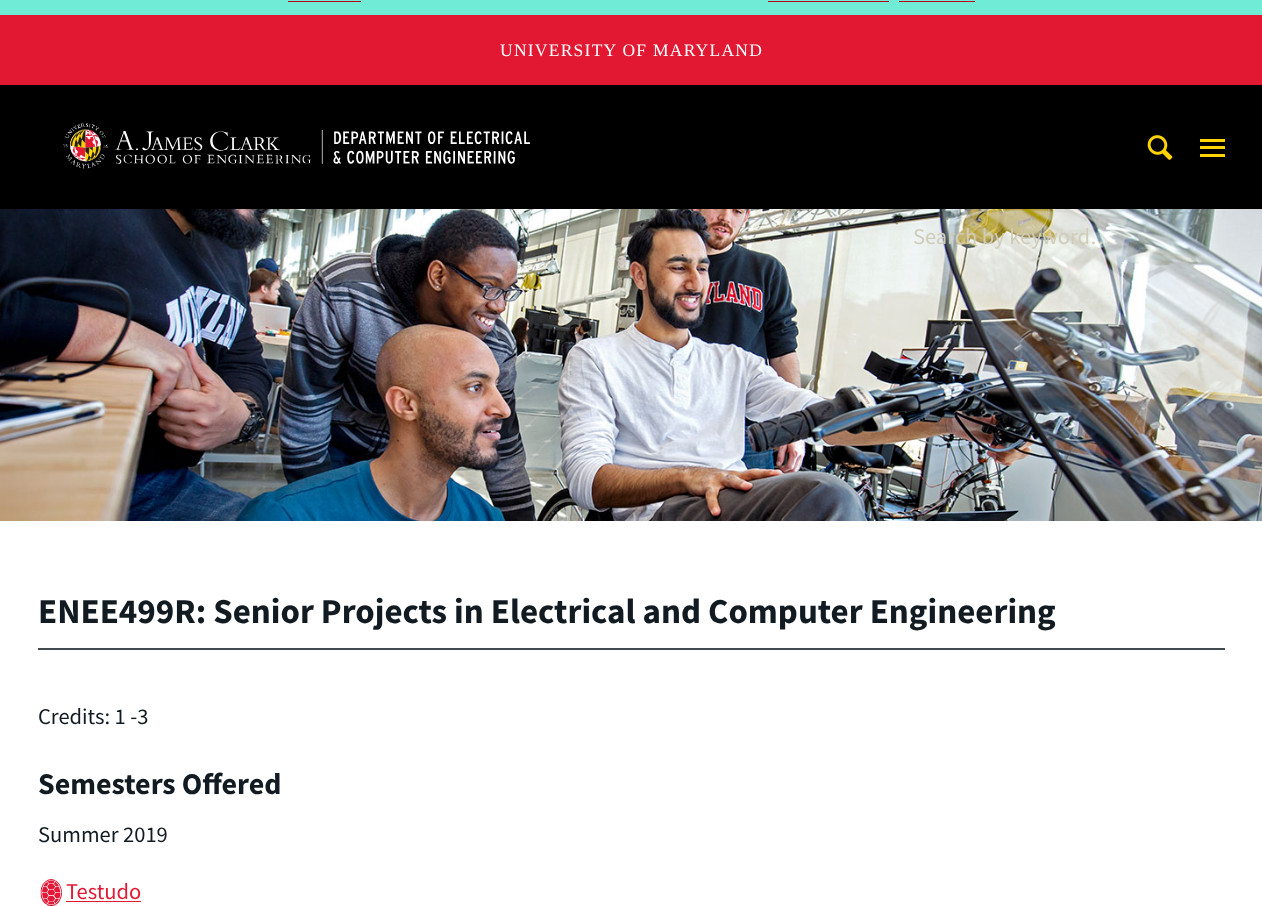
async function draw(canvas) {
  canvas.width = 1262;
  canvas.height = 906;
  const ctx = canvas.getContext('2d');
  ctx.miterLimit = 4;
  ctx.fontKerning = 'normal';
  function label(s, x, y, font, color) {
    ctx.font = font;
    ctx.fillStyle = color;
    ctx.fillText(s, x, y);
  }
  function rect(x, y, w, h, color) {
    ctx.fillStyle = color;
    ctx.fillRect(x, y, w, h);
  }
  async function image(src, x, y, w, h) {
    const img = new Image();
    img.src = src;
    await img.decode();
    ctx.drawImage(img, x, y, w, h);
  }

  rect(0, 0, 1262, 906, '#fff');
  rect(0, 0, 1262, 15, '#70ebd6');
  rect(288, 1, 73, 1, '#bb0019');
  rect(768, 1, 121, 1, '#bb0019');
  rect(899, 1, 76, 1, '#bb0019');
  rect(0, 15, 1262, 70, '#e21833');
  ctx.letterSpacing = '1.25px';
  label('UNIVERSITY OF MARYLAND', 500, 56, '17.5px Liberation Serif', '#fff');
  await image('assets/img1.png', 0, 209, 1262, 312);
  rect(0, 85, 1262, 124, '#000');
  await image('assets/img2.png', 63, 123, 467, 46);
  await image('assets/img3.png', 1147, 135, 26, 25);
  rect(1200, 139, 25, 3, '#ffd200');
  rect(1200, 154, 25, 3, '#ffd200');
  rect(1200, 146, 25, 3, '#ffd200');
  ctx.letterSpacing = '0px';
  label('Search by keyword…', 913, 244, '22.5px Source Sans Pro', '#cfcdb9');
  label('ENEE499R: Senior Projects in Electrical and Computer Engineering', 38, 623, 'bold 35px Source Sans Pro', '#121b21');
  rect(38, 648, 1187, 2, '#434a4f');
  label('Credits: 1 -3', 38, 724, '22.5px Source Sans Pro', '#121b21');
  label('Semesters Offered', 38, 794, 'bold 30px Source Sans Pro', '#121b21');
  label('Summer 2019', 38, 842, '22.5px Source Sans Pro', '#121b21');
  await image('assets/img4.png', 40, 879, 22, 27);
  label('Testudo', 66, 899, '22.5px Source Sans Pro', '#e31933');
  rect(66, 901, 75, 1, '#e31933');
}

draw(document.querySelector('canvas'));
